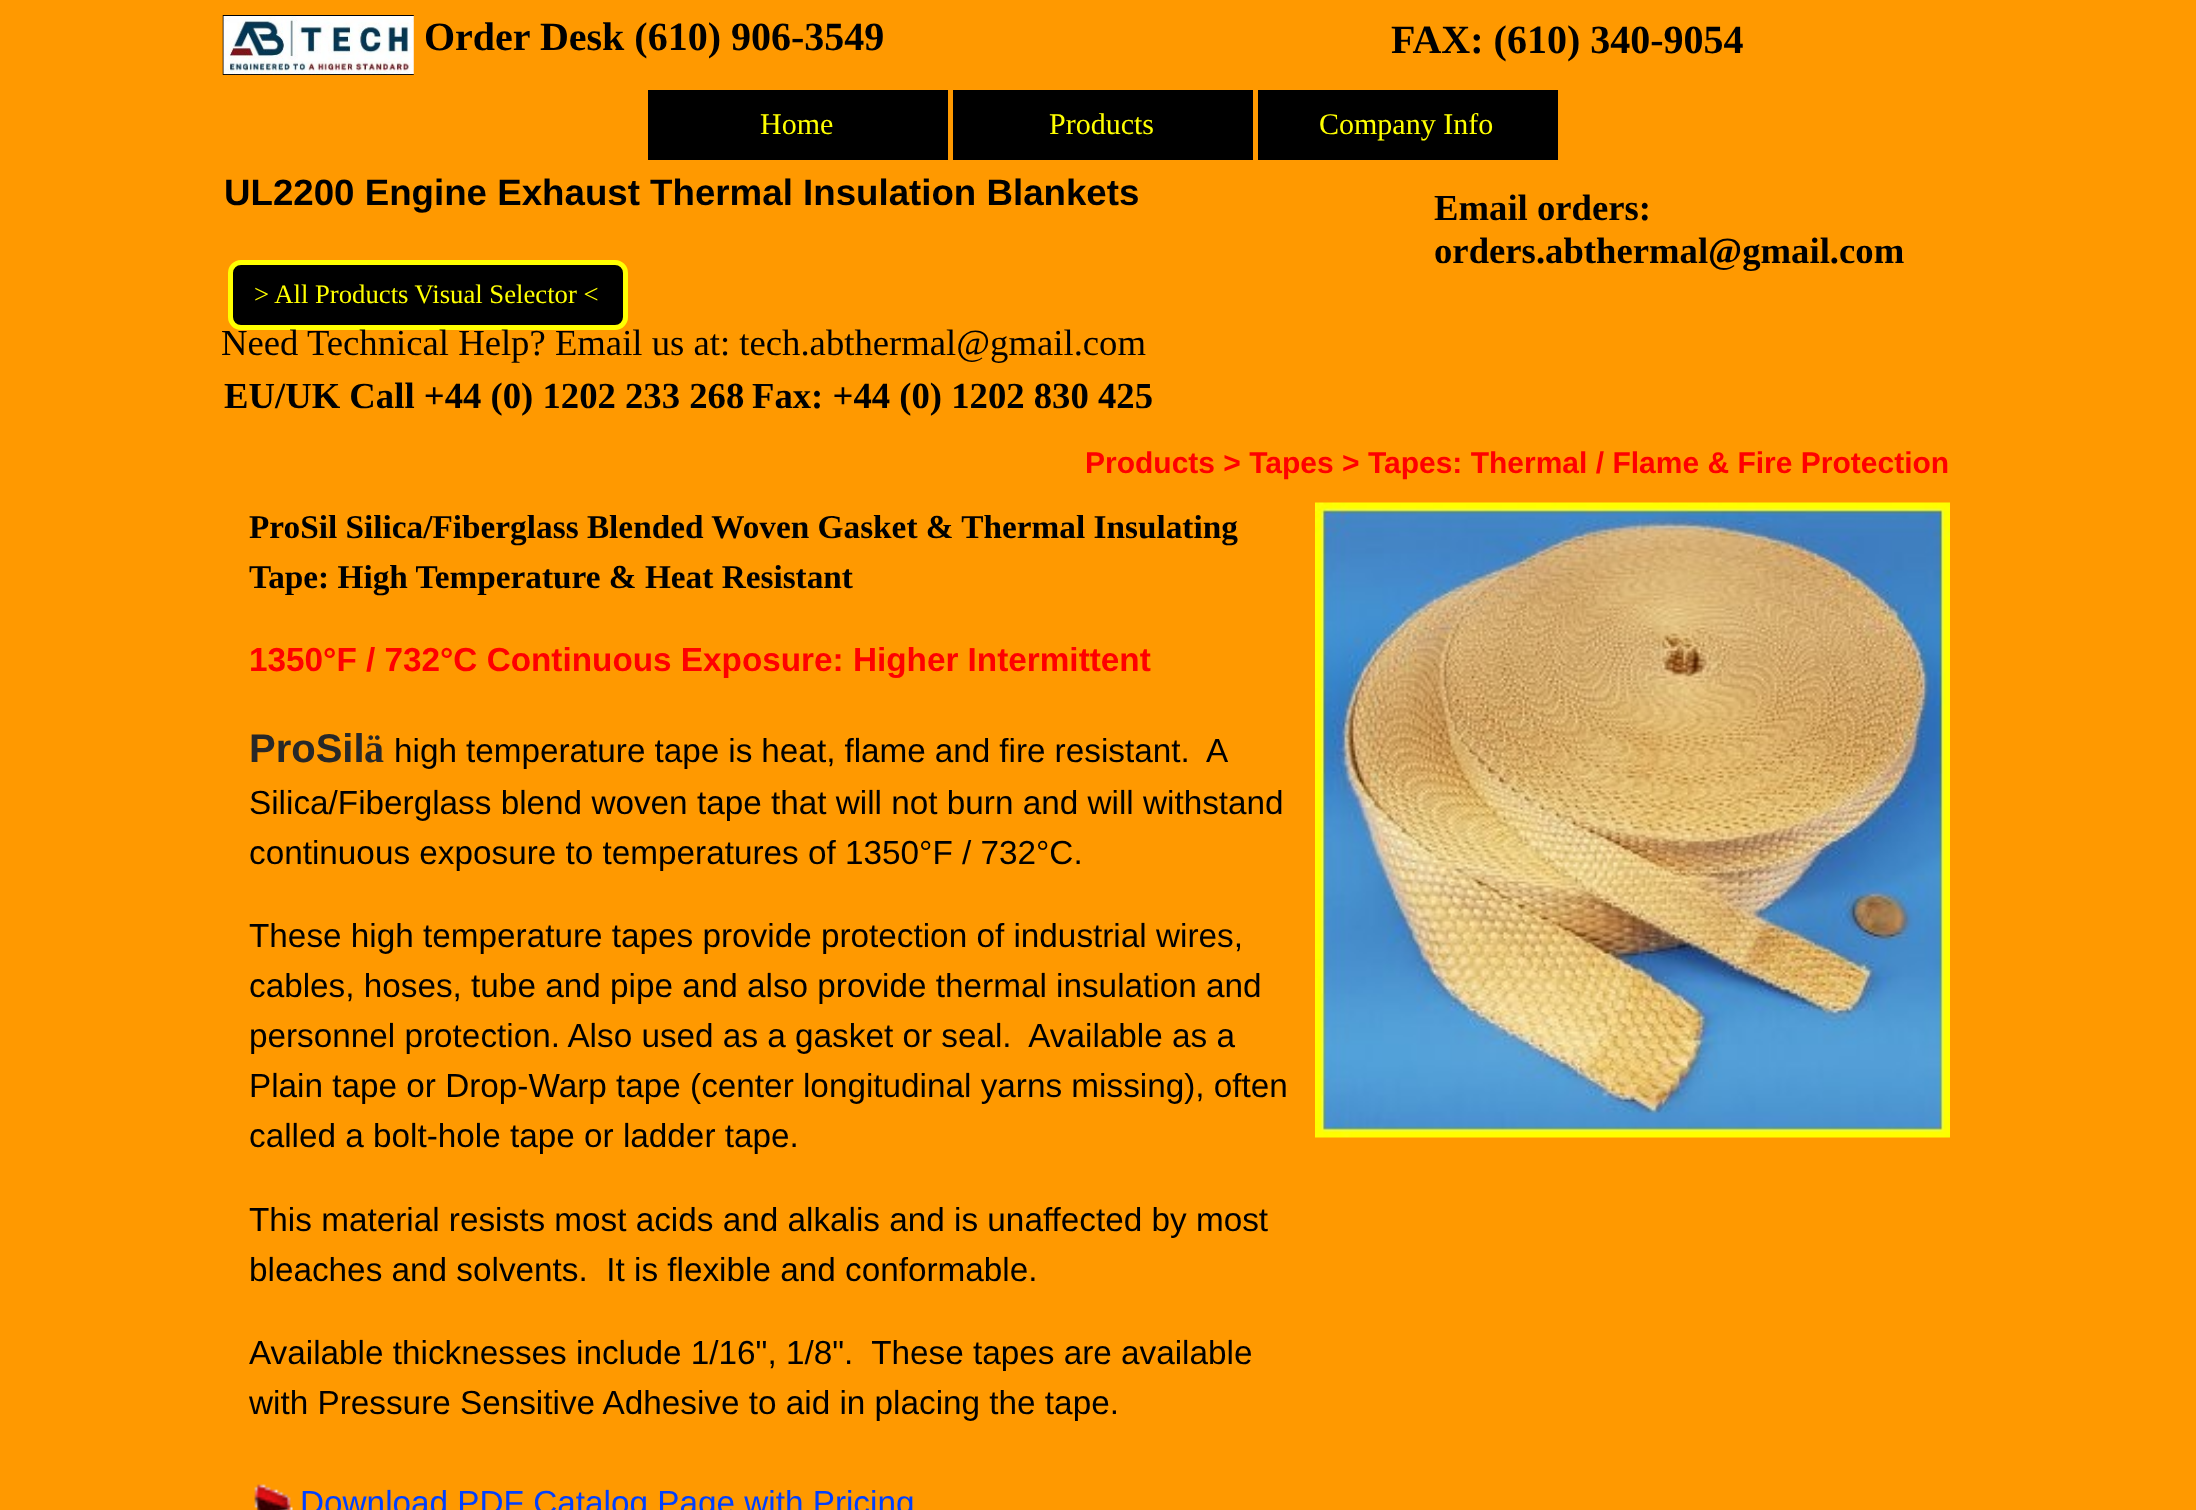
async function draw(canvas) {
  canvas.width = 2196;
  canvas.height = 1510;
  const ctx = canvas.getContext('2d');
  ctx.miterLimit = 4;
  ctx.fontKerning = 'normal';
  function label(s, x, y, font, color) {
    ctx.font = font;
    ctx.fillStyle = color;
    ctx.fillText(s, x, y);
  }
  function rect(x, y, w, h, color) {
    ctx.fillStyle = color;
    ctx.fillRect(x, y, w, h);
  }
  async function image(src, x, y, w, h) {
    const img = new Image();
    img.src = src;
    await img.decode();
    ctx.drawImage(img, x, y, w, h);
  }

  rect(0, 0, 2196, 1510, '#f90');
  await image('assets/img1.png', 222, 15, 192, 60);
  label('Order Desk (610) 906-3549', 424, 50, 'bold 40px Liberation Serif', '#000');
  label('FAX: (610) 340-9054', 1391, 53, 'bold 40px Liberation Serif', '#000');
  rect(648, 90, 300, 70, '#000');
  label('Home', 760, 134, '30px Liberation Serif', '#ff0');
  rect(953, 90, 300, 70, '#000');
  label('Products', 1049, 134, '30px Liberation Serif', '#ff0');
  rect(1258, 90, 300, 70, '#000');
  label('Company Info', 1319, 134, '30px Liberation Serif', '#ff0');
  label('UL2200 Engine Exhaust Thermal Insulation Blankets', 224, 205, 'bold 36.7px Liberation Sans', '#000');
  label('Email orders:', 1434, 220, 'bold 36.7px Liberation Serif', '#000');
  label('orders.abthermal@gmail.com', 1434, 263, 'bold 36.7px Liberation Serif', '#000');
  ctx.beginPath();
  ctx.roundRect(230.5, 262.5, 395, 65, 10.5);
  ctx.fill();
  ctx.strokeStyle = '#ff0';
  ctx.lineWidth = 5;
  ctx.stroke();
  label('> All Products Visual Selector <', 254, 303, '26.7px Liberation Serif', '#ff0');
  label('Need Technical Help? Email us at: tech.abthermal@gmail.com', 221, 355, '36.7px Liberation Serif', '#000');
  label('EU/UK Call +44 (0) 1202 233 268', 224, 408, 'bold 36.7px Liberation Serif', '#000');
  label('Fax: +44 (0) 1202 830 425', 752, 408, 'bold 36.7px Liberation Serif', '#000');
  label('Products > Tapes > Tapes: Thermal / Flame & Fire Protection', 1085, 473, 'bold 30px Liberation Sans', '#f00');
  label('ProSil Silica/Fiberglass Blended Woven Gasket & Thermal Insulating', 249, 538, 'bold 33.3px Liberation Serif', '#000');
  label('Tape: High Temperature & Heat Resistant', 249, 588, 'bold 33.3px Liberation Serif', '#000');
  label('1350°F / 732°C Continuous Exposure: Higher Intermittent', 249, 671, 'bold 33.3px Liberation Sans', '#f00');
  label('ProSil', 249, 762, 'bold 40px Liberation Sans', '#282828');
  label('ä', 364, 762, 'bold 40px Liberation Serif', '#282828');
  ctx.wordSpacing = '-0.25px';
  label('high temperature tape is heat, flame and fire resistant.  A', 394, 762, '33.3px Liberation Sans', '#000');
  ctx.wordSpacing = '0px';
  label('Silica/Fiberglass blend woven tape that will not burn and will withstand', 249, 814, '33.3px Liberation Sans', '#000');
  label('continuous exposure to temperatures of 1350°F / 732°C.', 249, 864, '33.3px Liberation Sans', '#000');
  label('These high temperature tapes provide protection of industrial wires,', 249, 947, '33.3px Liberation Sans', '#000');
  label('cables, hoses, tube and pipe and also provide thermal insulation and', 249, 997, '33.3px Liberation Sans', '#000');
  label('personnel protection. Also used as a gasket or seal.  Available as a', 249, 1047, '33.3px Liberation Sans', '#000');
  label('Plain tape or Drop-Warp tape (center longitudinal yarns missing), often', 249, 1097, '33.3px Liberation Sans', '#000');
  label('called a bolt-hole tape or ladder tape.', 249, 1147, '33.3px Liberation Sans', '#000');
  label('This material resists most acids and alkalis and is unaffected by most', 249, 1231, '33.3px Liberation Sans', '#000');
  label('bleaches and solvents.  It is flexible and conformable.', 249, 1281, '33.3px Liberation Sans', '#000');
  label('Available thicknesses include 1/16", 1/8".  These tapes are available', 249, 1364, '33.3px Liberation Sans', '#000');
  label('with Pressure Sensitive Adhesive to aid in placing the tape.', 249, 1414, '33.3px Liberation Sans', '#000');
  await image('assets/img2.png', 254, 1484, 39, 26);
  label('Download PDF Catalog Page with Pricing', 300, 1514, '33.3px Liberation Sans', '#0040ff');
  await image('assets/img3.png', 1315, 502, 635, 636);
}

draw(document.querySelector('canvas'));
